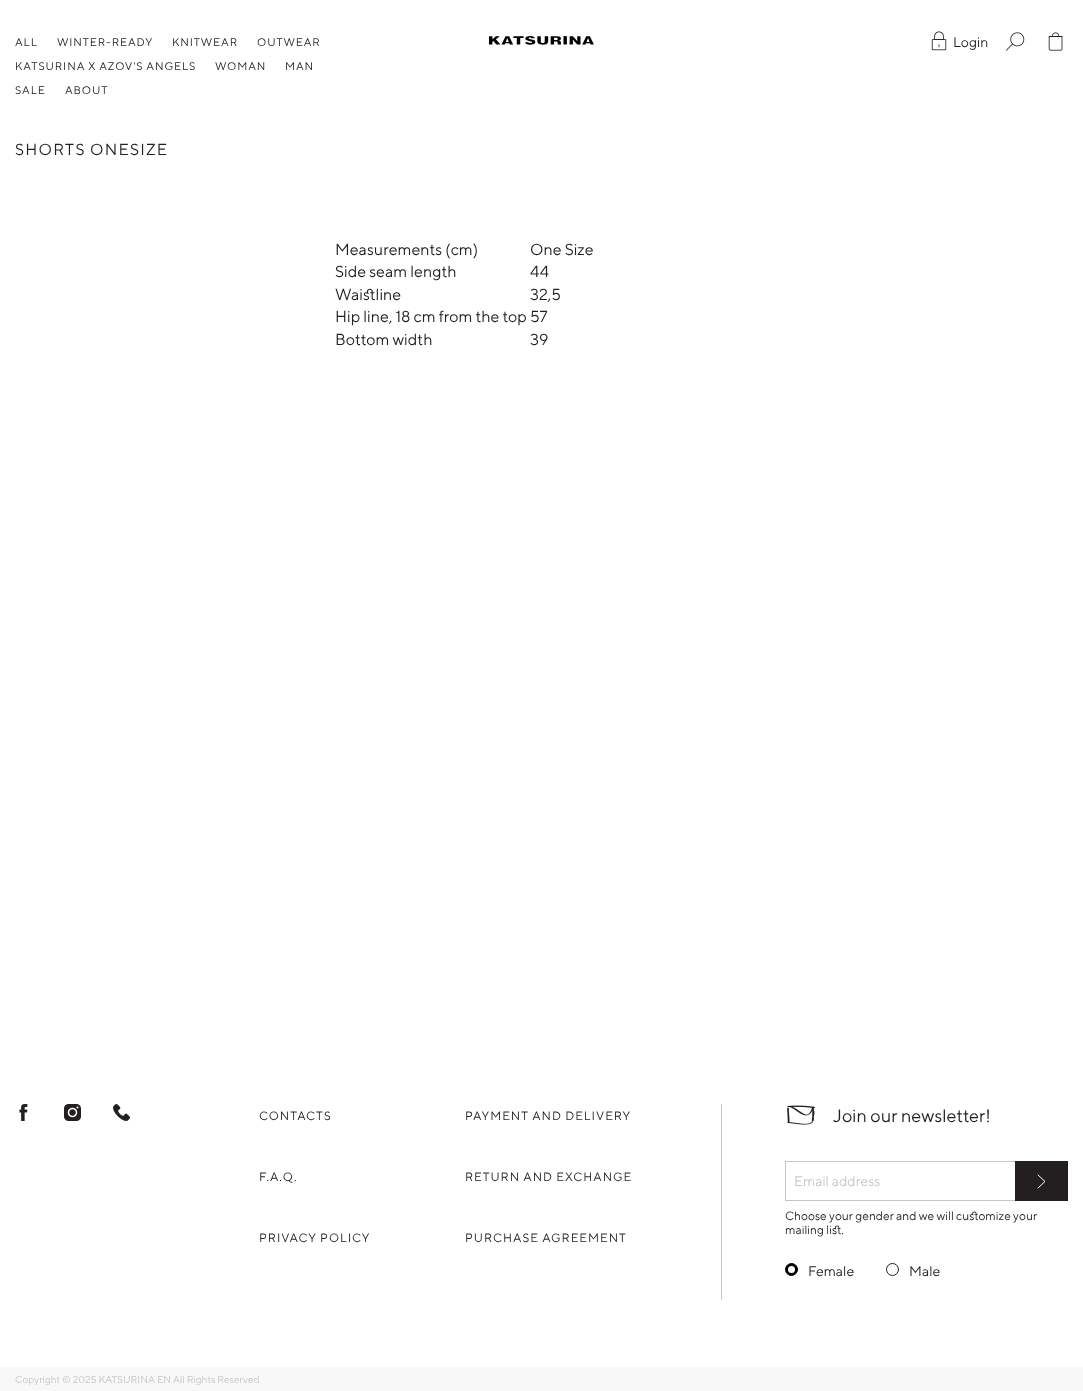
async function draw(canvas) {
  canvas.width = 1083;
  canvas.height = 1391;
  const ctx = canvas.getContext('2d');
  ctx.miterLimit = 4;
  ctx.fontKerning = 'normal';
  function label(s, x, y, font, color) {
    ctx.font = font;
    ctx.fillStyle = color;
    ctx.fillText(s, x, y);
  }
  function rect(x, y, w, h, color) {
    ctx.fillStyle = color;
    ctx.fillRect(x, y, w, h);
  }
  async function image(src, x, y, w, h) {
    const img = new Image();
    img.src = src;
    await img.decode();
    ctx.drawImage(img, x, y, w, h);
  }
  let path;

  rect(0, 0, 1083, 1391, '#fff');
  ctx.letterSpacing = '0.9px';
  label('ALL', 15, 46, '11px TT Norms', '#231f20');
  label('WINTER-READY', 57, 46, '11px TT Norms', '#231f20');
  label('KNITWEAR', 172, 46, '11px TT Norms', '#231f20');
  label('OUTWEAR', 257, 46, '11px TT Norms', '#231f20');
  label('KATSURINA X AZOV\'S ANGELS', 15, 70, '11px TT Norms', '#231f20');
  label('WOMAN', 215, 70, '11px TT Norms', '#231f20');
  label('MAN', 285, 70, '11px TT Norms', '#231f20');
  label('SALE', 15, 94, '11px TT Norms', '#231f20');
  label('ABOUT', 65, 94, '11px TT Norms', '#231f20');
  await image('assets/img1.png', 488, 36, 106, 9);
  await image('assets/img2.png', 931, 31, 16, 20);
  ctx.letterSpacing = '0px';
  label('Login', 953, 47, '14px TT Norms', '#231f20');
  await image('assets/img3.png', 1006, 32, 19, 19);
  await image('assets/img4.png', 1048, 32, 15, 19);
  ctx.letterSpacing = '1.25px';
  label('SHORTS ONESIZE', 15, 155, '16px TT Norms', '#231f20');
  ctx.letterSpacing = '0px';
  label('Measurements (cm)', 335, 255, '16px TT Norms', '#231f20');
  label('One Size', 530, 255, '16px TT Norms', '#231f20');
  label('Side seam length', 335, 277, '16px TT Norms', '#231f20');
  label('44', 530, 277, '16px TT Norms', '#231f20');
  label('Waistline', 335, 300, '16px TT Norms', '#231f20');
  label('32,5', 530, 300, '16px TT Norms', '#231f20');
  label('Hip line, 18 cm from the top', 335, 322, '16px TT Norms', '#231f20');
  label('57', 530, 322, '16px TT Norms', '#231f20');
  label('Bottom width', 335, 345, '16px TT Norms', '#231f20');
  label('39', 530, 345, '16px TT Norms', '#231f20');
  await image('assets/img5.png', 19, 1104, 9, 17);
  await image('assets/img6.png', 64, 1104, 17, 17);
  await image('assets/img7.png', 113, 1104, 17, 17);
  ctx.letterSpacing = '1px';
  label('CONTACTS', 259, 1120, '12px TT Norms', '#231f20');
  label('PAYMENT AND DELIVERY', 465, 1120, '12px TT Norms', '#231f20');
  label('F.A.Q.', 259, 1181, '12px TT Norms', '#231f20');
  label('RETURN AND EXCHANGE', 465, 1181, '12px TT Norms', '#231f20');
  label('PRIVACY POLICY', 259, 1242, '12px TT Norms', '#231f20');
  label('PURCHASE AGREEMENT', 465, 1242, '12px TT Norms', '#231f20');
  rect(721, 1104, 1, 196, '#c7c5c5');
  await image('assets/img8.png', 787, 1105, 28, 20);
  ctx.letterSpacing = '0px';
  label('Join our newsletter!', 833, 1122, '18px TT Norms', '#231f20');
  ctx.strokeStyle = '#c7c5c5';
  ctx.strokeRect(785.5, 1161.5, 282, 39);
  label('Email address', 794, 1186, '14px TT Norms', '#c7c5c5');
  rect(1015, 1161, 53, 40, '#231f20');
  path = new Path2D('M1038 1175L1045 1181.5L1038 1188');
  ctx.strokeStyle = '#fff';
  ctx.lineCap = 'round';
  ctx.stroke(path);
  label('Choose your gender and we will customize your', 785, 1220, '12px TT Norms', '#231f20');
  label('mailing list.', 785, 1234, '12px TT Norms', '#231f20');
  ctx.fillStyle = '#000';
  ctx.beginPath();
  ctx.arc(791.5, 1269.5, 6, 0, 2 * Math.PI);
  ctx.fill();
  ctx.strokeStyle = '#000';
  ctx.stroke();
  ctx.fillStyle = '#fff';
  ctx.beginPath();
  ctx.arc(791.5, 1269.5, 3.5, 0, 2 * Math.PI);
  ctx.fill();
  label('Female', 808, 1276, '14px TT Norms', '#231f20');
  ctx.beginPath();
  ctx.arc(892.5, 1269.5, 6, 0, 2 * Math.PI);
  ctx.strokeStyle = '#231f20';
  ctx.stroke();
  label('Male', 909, 1276, '14px TT Norms', '#231f20');
  rect(0, 1367, 1083, 24, '#f8f8f8');
  label('Copyright © 2025 KATSURINA EN All Rights Reserved', 15, 1383, '10px TT Norms', '#c7c5c5');
}

draw(document.querySelector('canvas'));
